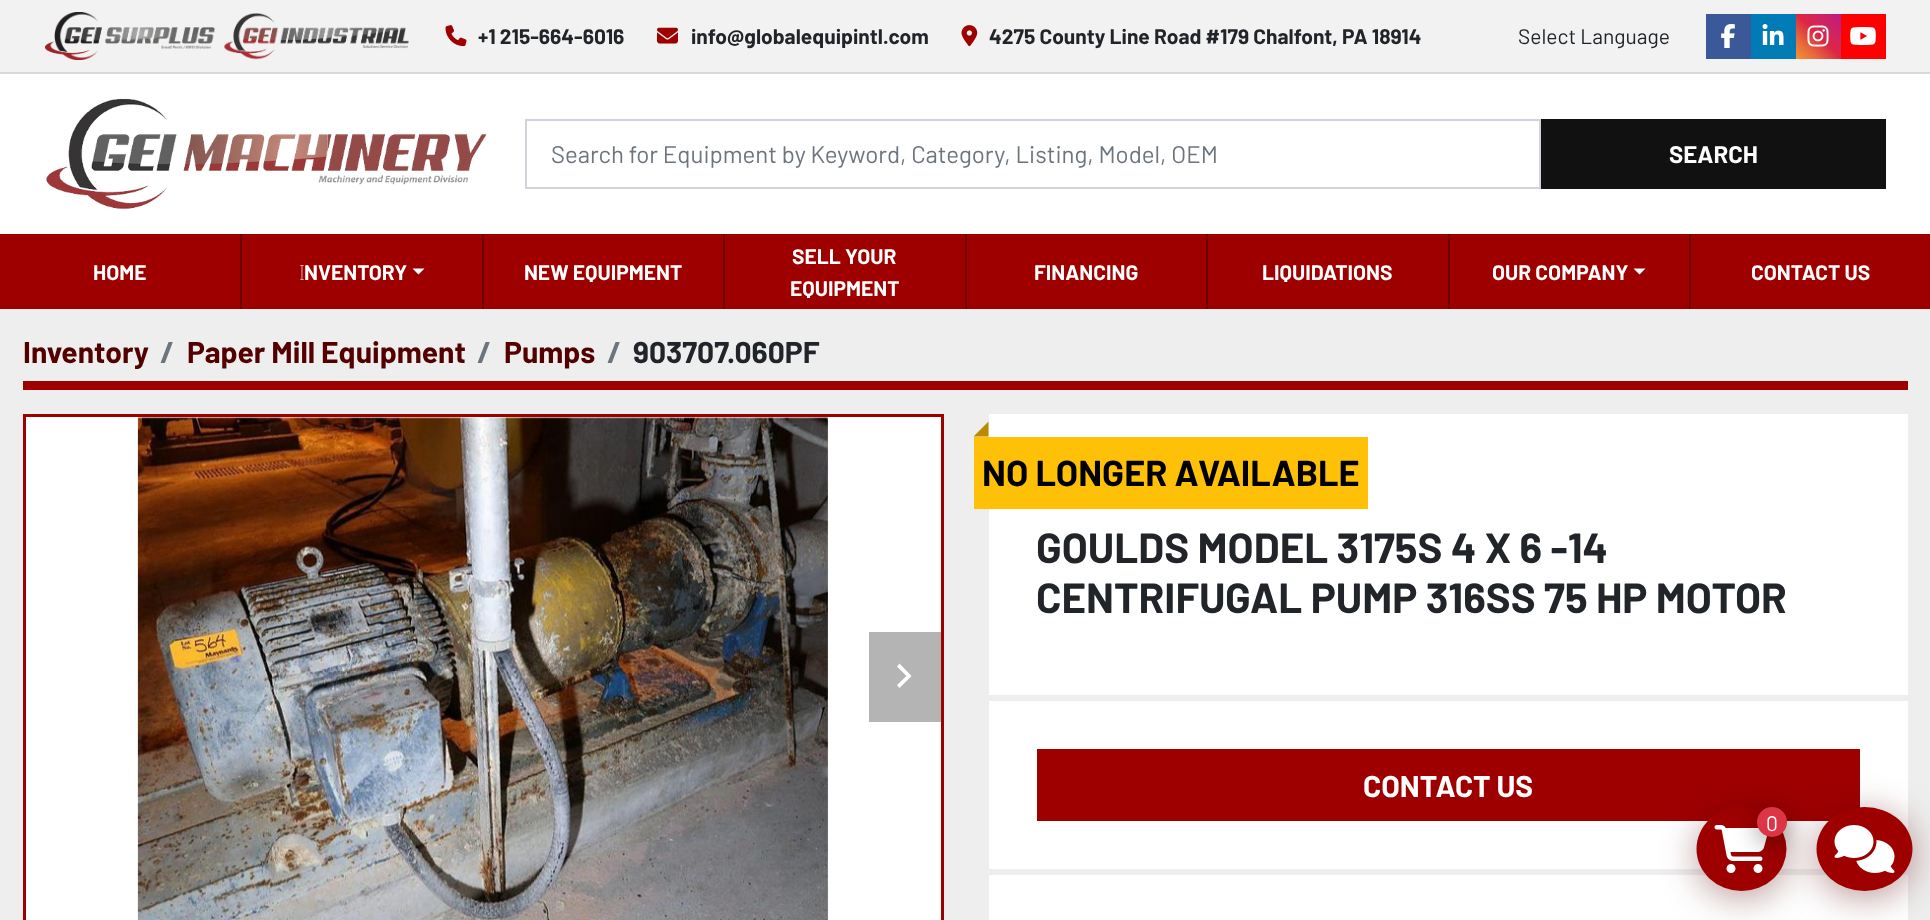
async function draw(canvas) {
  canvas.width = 1930;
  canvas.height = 920;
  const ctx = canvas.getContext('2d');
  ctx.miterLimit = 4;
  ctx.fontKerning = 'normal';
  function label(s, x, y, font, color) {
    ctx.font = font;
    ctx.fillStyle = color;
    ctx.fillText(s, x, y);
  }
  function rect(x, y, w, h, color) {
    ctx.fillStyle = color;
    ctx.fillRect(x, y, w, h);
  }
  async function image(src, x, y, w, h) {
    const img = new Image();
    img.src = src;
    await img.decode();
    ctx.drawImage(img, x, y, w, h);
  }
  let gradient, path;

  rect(0, 0, 1930, 920, '#eee');
  rect(0, 0, 1930, 72, '#f2f2f2');
  rect(0, 72, 1930, 2, '#d9d9d9');
  await image('assets/img1.png', 45, 12, 170, 48);
  await image('assets/img2.png', 224, 13, 185, 47);
  await image('assets/img3.png', 445, 25, 22, 22);
  label('+1 215-664-6016', 478, 44, 'bold 21px Barlow', '#212529');
  await image('assets/img4.png', 657, 27, 21, 17);
  label('info@globalequipintl.com', 691, 44, 'bold 21px Barlow', '#212529');
  await image('assets/img5.png', 961, 25, 17, 22);
  label('4275 County Line Road #179 Chalfont, PA 18914', 989, 44, 'bold 21px Barlow', '#212529');
  label('Select Language', 1518, 44, '21px Barlow', '#212529');
  rect(1706, 14, 45, 45, '#3b5999');
  await image('assets/img6.png', 1721, 24, 14, 24);
  rect(1751, 14, 45, 45, '#007bb6');
  await image('assets/img7.png', 1762, 24, 22, 21);
  gradient = ctx.createLinearGradient(1796, 59, 1841, 13);
  gradient.addColorStop(0, '#f09433');
  gradient.addColorStop(0.25, '#e6683c');
  gradient.addColorStop(0.5, '#dc2743');
  gradient.addColorStop(0.75, '#cc2366');
  gradient.addColorStop(1, '#bc1888');
  ctx.fillStyle = gradient;
  ctx.fillRect(1796, 14, 45, 45);
  await image('assets/img8.png', 1807, 25, 22, 22);
  rect(1841, 14, 45, 45, '#f00');
  await image('assets/img9.png', 1850, 27, 26, 18);
  rect(0, 74, 1930, 160, '#fff');
  await image('assets/img10.png', 46, 98, 441, 112);
  ctx.strokeStyle = '#ced4da';
  ctx.lineWidth = 2;
  ctx.strokeRect(526, 120, 1014, 68);
  label('Search for Equipment by Keyword, Category, Listing, Model, OEM', 551, 163, '24px Barlow', '#6c757d');
  rect(1541, 119, 345, 70, '#111');
  label('SEARCH', 1669, 163, 'bold 24px Barlow', '#fff');
  rect(0, 234, 1930, 75, '#9e0000');
  rect(240, 234, 2, 75, '#6b0000');
  label('HOME', 93, 280, 'bold 21px Barlow', '#fff');
  rect(482, 234, 2, 75, '#6b0000');
  label('I', 299, 280, '100 21px Noto Sans', '#fff');
  label('NVENTORY', 304, 280, 'bold 21px Barlow', '#fff');
  path = new Path2D('M412.5 268.5H424.5L418.5 274.5Z');
  ctx.fill(path);
  rect(723, 234, 2, 75, '#6b0000');
  label('NEW EQUIPMENT', 524, 280, 'bold 21px Barlow', '#fff');
  rect(965, 234, 2, 75, '#6b0000');
  label('SELL YOUR', 792, 264, 'bold 21px Barlow', '#fff');
  label('EQUIPMENT', 790, 296, 'bold 21px Barlow', '#fff');
  rect(1206, 234, 2, 75, '#6b0000');
  label('FINANCING', 1034, 280, 'bold 21px Barlow', '#fff');
  rect(1448, 234, 2, 75, '#6b0000');
  label('LIQUIDATIONS', 1262, 280, 'bold 21px Barlow', '#fff');
  rect(1689, 234, 2, 75, '#6b0000');
  label('OUR COMPANY', 1492, 280, 'bold 21px Barlow', '#fff');
  path = new Path2D('M1633.5 268.5H1645.5L1639.5 274.5Z');
  ctx.fill(path);
  label('CONTACT US', 1751, 280, 'bold 21px Barlow', '#fff');
  rect(23, 381, 1885, 9, '#9e0000');
  label('Inventory', 23, 363, 'bold 30px Barlow', '#520000');
  label('/', 160, 363, 'bold 30px Barlow', '#6c757d');
  label('Paper Mill Equipment', 187, 363, 'bold 30px Barlow', '#520000');
  label('/', 477, 363, 'bold 30px Barlow', '#6c757d');
  label('Pumps', 504, 363, 'bold 30px Barlow', '#520000');
  label('/', 607, 363, 'bold 30px Barlow', '#6c757d');
  label('903707.060PF', 633, 363, 'bold 30px Barlow', '#212529');
  ctx.fillStyle = '#fff';
  ctx.beginPath();
  ctx.rect(24.5, 415.5, 918, 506);
  ctx.fill();
  ctx.strokeStyle = '#9e0000';
  ctx.lineWidth = 3;
  ctx.stroke();
  await image('assets/img11.png', 137, 417, 691, 503);
  rect(869, 632, 72, 90, '#b4b4b4');
  ctx.fillStyle = '#fff';
  path = new Path2D('M911.5 676L899.5 688L897 685L906.5 676L897 666.5L899.5 663.5Z');
  ctx.fill(path);
  rect(989, 414, 919, 506, '#fff');
  rect(974, 437, 394, 72, '#ffc107');
  ctx.fillStyle = '#ba8b00';
  path = new Path2D('M988.5 436.5H973.5L988.5 421.5Z');
  ctx.fill(path);
  label('NO LONGER AVAILABLE', 982, 486, 'bold 36px Barlow', '#000');
  label('GOULDS MODEL 3175S 4 X 6 -14', 1036, 563, 'bold 42px Barlow', '#212529');
  label('CENTRIFUGAL PUMP 316SS 75 HP MOTOR', 1036, 613, 'bold 42px Barlow', '#212529');
  rect(989, 695, 919, 6, '#eee');
  rect(989, 869, 919, 6, '#eee');
  rect(1037, 749, 823, 72, '#9e0000');
  label('CONTACT US', 1363, 797, 'bold 30px Barlow', '#fff');
  ctx.fillStyle = '#52000066';
  ctx.filter = 'blur(18px)';
  ctx.beginPath();
  ctx.roundRect(1697, 813, 90, 84, 42);
  ctx.fill();
  ctx.filter = 'none';
  ctx.fillStyle = '#9e0000';
  ctx.beginPath();
  ctx.ellipse(1741.5, 849, 45, 42, 0, 0, 2 * Math.PI);
  ctx.fill();
  await image('assets/img13.png', 1714, 825, 53, 48);
  ctx.fillStyle = '#52000066';
  ctx.filter = 'blur(18px)';
  ctx.beginPath();
  ctx.roundRect(1817, 813, 96, 84, 42);
  ctx.fill();
  ctx.filter = 'none';
  ctx.fillStyle = '#9e0000';
  ctx.beginPath();
  ctx.ellipse(1864.5, 849, 48, 42, 0, 0, 2 * Math.PI);
  ctx.fill();
  await image('assets/img12.png', 1834, 825, 61, 48);
  ctx.fillStyle = '#00000066';
  ctx.filter = 'blur(12px)';
  ctx.beginPath();
  ctx.roundRect(1757, 813, 30, 30, 15);
  ctx.fill();
  ctx.filter = 'none';
  ctx.fillStyle = '#dc3545';
  ctx.beginPath();
  ctx.arc(1772, 822, 15, 0, 2 * Math.PI);
  ctx.fill();
  label('0', 1766, 831, '21px Barlow', '#fff');
}

draw(document.querySelector('canvas'));
